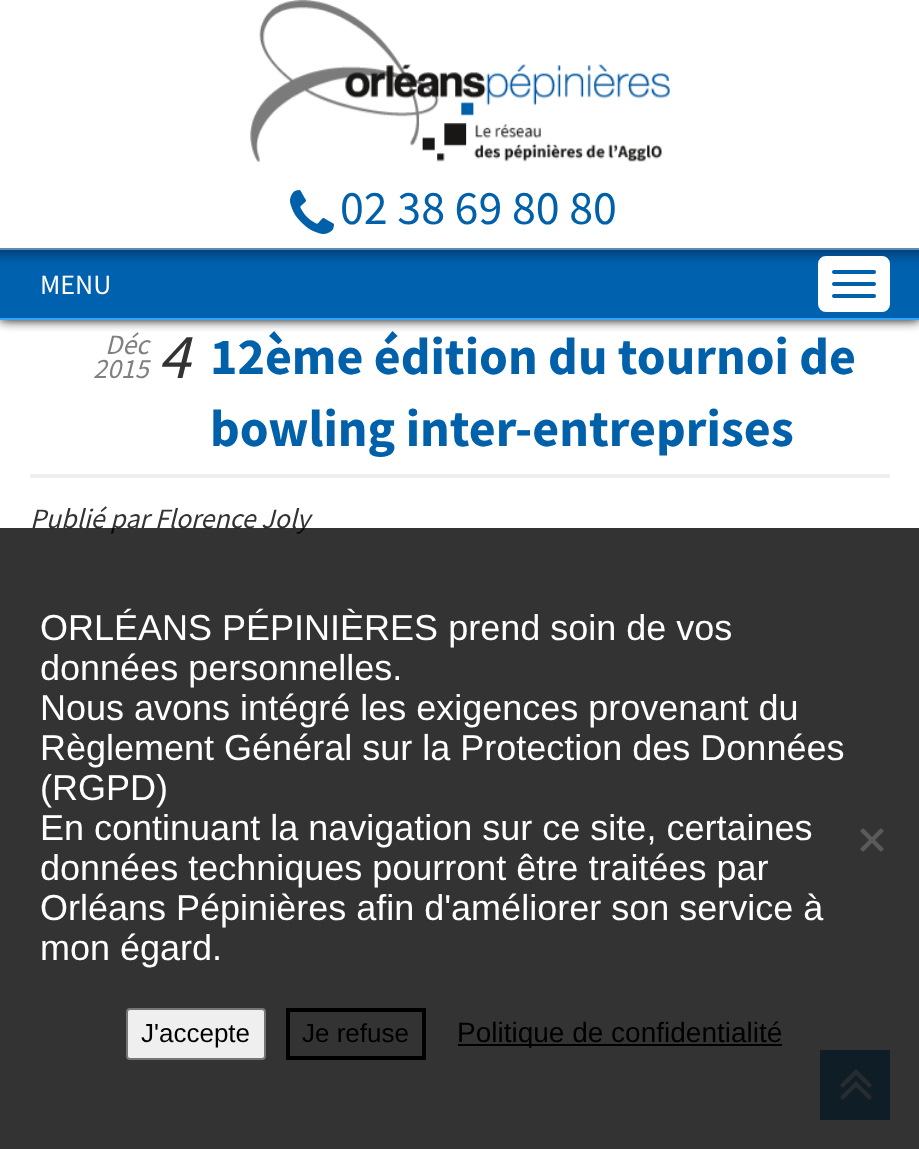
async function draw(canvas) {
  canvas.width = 919;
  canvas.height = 1149;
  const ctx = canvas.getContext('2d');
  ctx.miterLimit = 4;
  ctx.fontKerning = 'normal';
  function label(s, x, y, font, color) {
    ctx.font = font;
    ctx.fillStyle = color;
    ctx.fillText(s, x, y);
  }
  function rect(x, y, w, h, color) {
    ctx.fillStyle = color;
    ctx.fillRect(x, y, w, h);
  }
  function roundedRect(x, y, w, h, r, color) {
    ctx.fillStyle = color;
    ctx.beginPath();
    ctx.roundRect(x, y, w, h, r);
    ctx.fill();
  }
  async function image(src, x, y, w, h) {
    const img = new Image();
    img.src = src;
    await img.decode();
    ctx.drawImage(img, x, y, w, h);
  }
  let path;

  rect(0, 0, 919, 1149, '#fff');
  ctx.save();
  ctx.beginPath();
  ctx.rect(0, 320, 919, 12);
  ctx.clip();
  ctx.fillStyle = '#000';
  ctx.filter = 'blur(6px)';
  ctx.beginPath();
  ctx.rect(0, 0, 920, 320);
  ctx.fill();
  ctx.filter = 'none';
  ctx.restore();
  await image('assets/img1.png', 250, 0, 420, 162);
  await image('assets/img2.png', 290, 190, 44, 44);
  label('02 38 69 80 80', 340, 224, '48px Source Sans Pro', '#0160aa');
  await image('assets/img3.png', 0, 250, 919, 68);
  rect(0, 248, 919, 2, '#5d8db5');
  rect(0, 318, 919, 2, '#32a5fe');
  label('MENU', 40, 294, '28px Source Sans Pro', '#fff');
  ctx.beginPath();
  ctx.roundRect(819, 257, 70, 54, 7);
  ctx.fill();
  ctx.strokeStyle = '#fff';
  ctx.lineWidth = 2;
  ctx.stroke();
  roundedRect(832, 270, 44, 4, 2, '#0160aa');
  roundedRect(832, 282, 44, 4, 2, '#0160aa');
  roundedRect(832, 294, 44, 4, 2, '#0160aa');
  label('Déc', 105, 354, 'italic 28px Source Sans Pro', '#808080');
  label('2015', 93, 378, 'italic 28px Source Sans Pro', '#808080');
  label('4', 158, 378, 'italic 64px Source Sans Pro', '#333');
  rect(30, 474, 860, 4, '#efefef');
  label('12ème édition du tournoi de', 210, 374, 'bold 52px Source Sans Pro', '#0160aa');
  label('bowling inter-entreprises', 210, 446, 'bold 52px Source Sans Pro', '#0160aa');
  label('Publié par Florence Joly', 30, 528, 'italic 28px Source Sans Pro', '#333');
  rect(820, 1050, 70, 70, '#4d90c4');
  await image('assets/img4.png', 840, 1069, 32, 31);
  rect(0, 528, 919, 621, '#000000cc');
  label('ORLÉANS PÉPINIÈRES prend soin de vos', 40, 640, '36px Liberation Sans', '#fff');
  label('données personnelles.', 40, 680, '36px Liberation Sans', '#fff');
  label('Nous avons intégré les exigences provenant du', 40, 720, '36px Liberation Sans', '#fff');
  label('Règlement Général sur la Protection des Données', 40, 760, '36px Liberation Sans', '#fff');
  label('(RGPD)', 40, 800, '36px Liberation Sans', '#fff');
  label('En continuant la navigation sur ce site, certaines', 40, 840, '36px Liberation Sans', '#fff');
  label('données techniques pourront être traitées par', 40, 880, '36px Liberation Sans', '#fff');
  label('Orléans Pépinières afin d\'améliorer son service à', 40, 920, '36px Liberation Sans', '#fff');
  label('mon égard.', 40, 960, '36px Liberation Sans', '#fff');
  ctx.fillStyle = '#5a5a5a';
  path = new Path2D('M881 828L884 831L863 852L860 849Z');
  ctx.fill(path);
  path = new Path2D('M860 831L863 828L884 849L881 852Z');
  ctx.fill(path);
  ctx.fillStyle = '#efefef';
  ctx.beginPath();
  ctx.roundRect(127, 1009, 138, 50, 3);
  ctx.fill();
  ctx.strokeStyle = '#767676';
  ctx.stroke();
  label('J\'accepte', 141, 1042, '26px Liberation Sans', '#000');
  ctx.strokeStyle = '#000';
  ctx.lineWidth = 4;
  ctx.strokeRect(288, 1010, 136, 48);
  label('Je refuse', 302, 1042, '26px Liberation Sans', '#000');
  rect(458, 1044, 324, 2, '#000');
  label('Politique de confidentialité', 457, 1042, '28px Liberation Sans', '#000');
}

draw(document.querySelector('canvas'));
